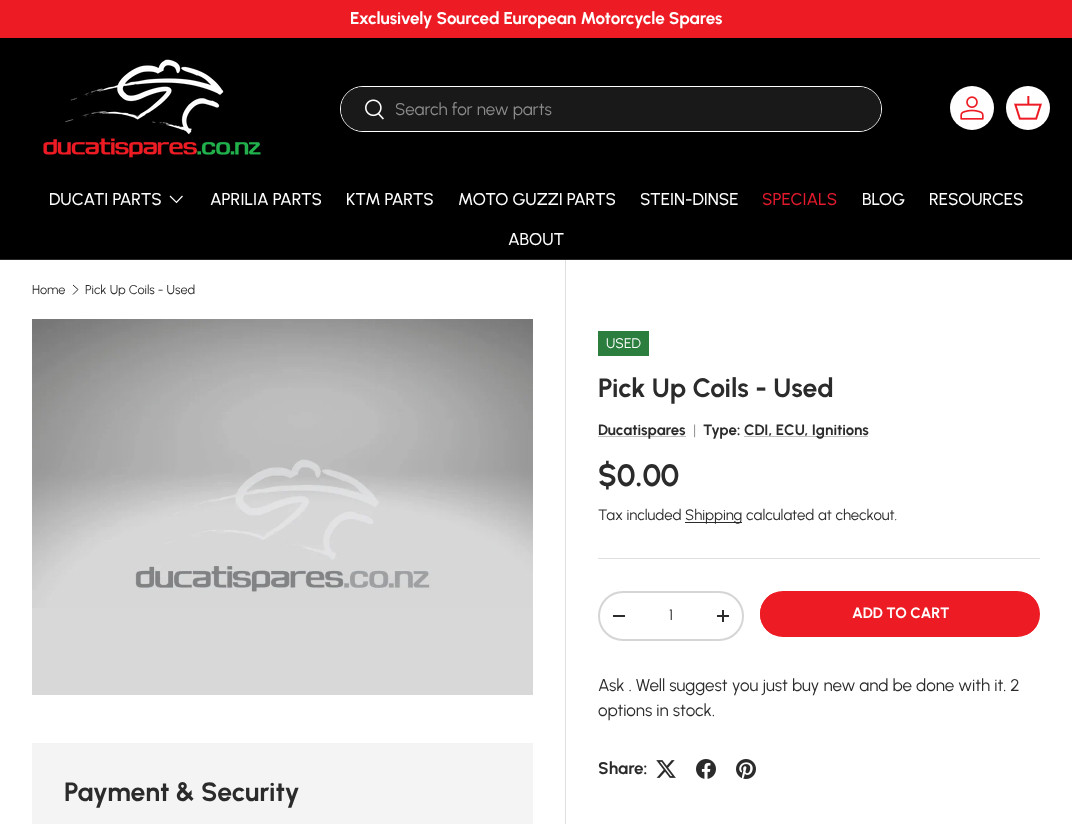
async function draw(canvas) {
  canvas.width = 1072;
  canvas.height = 824;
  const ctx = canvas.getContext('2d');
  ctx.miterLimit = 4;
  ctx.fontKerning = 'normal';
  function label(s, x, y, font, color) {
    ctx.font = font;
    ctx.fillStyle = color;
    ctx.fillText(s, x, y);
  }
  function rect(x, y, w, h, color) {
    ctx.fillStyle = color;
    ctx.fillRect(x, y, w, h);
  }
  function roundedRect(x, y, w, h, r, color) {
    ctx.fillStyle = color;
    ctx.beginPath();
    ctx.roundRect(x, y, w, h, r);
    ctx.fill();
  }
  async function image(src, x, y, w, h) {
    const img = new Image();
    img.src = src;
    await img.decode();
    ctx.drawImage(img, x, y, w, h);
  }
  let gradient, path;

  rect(0, 0, 1072, 824, '#fff');
  rect(0, 0, 1072, 38, '#ed1c24');
  label('Exclusively Sourced European Motorcycle Spares', 350, 24, 'bold 17px Urbanist', '#fff');
  rect(0, 38, 1072, 221, '#000');
  rect(0, 259, 1072, 1, '#262626');
  await image('assets/img1.png', 43, 59, 218, 99);
  ctx.beginPath();
  ctx.roundRect(340.5, 86.5, 541, 45, 22.5);
  ctx.strokeStyle = '#fff';
  ctx.stroke();
  roundedRect(341, 87, 540, 44, 22, '#191919');
  await image('assets/img2.png', 365, 99, 19, 21);
  label('Search for new parts', 395, 115, '17px Urbanist', '#8c8c8c');
  ctx.fillStyle = '#fff';
  ctx.beginPath();
  ctx.arc(972, 108, 22, 0, 2 * Math.PI);
  ctx.fill();
  await image('assets/img3.png', 960, 96, 24, 24);
  ctx.beginPath();
  ctx.arc(1028, 108, 22, 0, 2 * Math.PI);
  ctx.fill();
  await image('assets/img4.png', 1014, 96, 28, 24);
  label('DUCATI PARTS', 49, 205, '500 17px Urbanist', '#fff');
  path = new Path2D('M182.5 196L176.5 202.5L170 196');
  ctx.lineWidth = 1.2;
  ctx.stroke(path);
  label('APRILIA PARTS', 210, 205, '500 17px Urbanist', '#fff');
  label('KTM PARTS', 346, 205, '500 17px Urbanist', '#fff');
  label('MOTO GUZZI PARTS', 458, 205, '500 17px Urbanist', '#fff');
  label('STEIN-DINSE', 640, 205, '500 17px Urbanist', '#fff');
  label('SPECIALS', 762, 205, '500 17px Urbanist', '#e11a2d');
  label('BLOG', 862, 205, '500 17px Urbanist', '#fff');
  label('RESOURCES', 929, 205, '500 17px Urbanist', '#fff');
  label('ABOUT', 508, 245, '500 17px Urbanist', '#fff');
  label('Home', 32, 294, '12.75px Urbanist', '#2a2b2a');
  path = new Path2D('M73 285L78 289.5L73 294.5');
  ctx.strokeStyle = '#2a2b2a';
  ctx.lineWidth = 1;
  ctx.stroke(path);
  ctx.save();
  ctx.beginPath();
  ctx.rect(85, 284, 111, 12);
  ctx.clip();
  label('Pick Up Coils - Used', 85, 294, '12.75px Urbanist', '#2a2b2a');
  ctx.restore();
  await image('assets/img5.png', 32, 319, 501, 289);
  rect(32, 608, 501, 87, '#d8d8d8');
  rect(565, 260, 1, 564, '#dfdfdf');
  rect(598, 331, 51, 25, '#2c7e3f');
  label('USED', 606, 348, '14px Urbanist', '#fff');
  label('Pick Up Coils - Used', 598, 397, 'bold 26.5px Urbanist', '#2a2b2a');
  rect(598, 436, 88, 1, '#bfbfbf');
  label('Ducatispares', 598, 435, 'bold 15px Urbanist', '#2a2b2a');
  label('|', 693, 435, '15px Urbanist', '#959595');
  label('Type:', 703, 435, 'bold 15px Urbanist', '#2a2b2a');
  rect(744, 436, 124, 1, '#bfbfbf');
  label('CDI, ECU, Ignitions', 744, 435, 'bold 15px Urbanist', '#2a2b2a');
  label('$0.00', 598, 486, 'bold 31px Urbanist', '#2a2b2a');
  label('Tax included', 598, 520, '15px Urbanist', '#2a2b2a');
  rect(685, 522, 57, 1, '#2a2b2a');
  label('Shipping calculated at checkout.', 685, 520, '15px Urbanist', '#2a2b2a');
  rect(598, 558, 442, 1, '#dfdfdf');
  ctx.beginPath();
  ctx.roundRect(599, 592, 144, 48, 24);
  ctx.strokeStyle = '#d4d5d4';
  ctx.lineWidth = 2;
  ctx.stroke();
  rect(613, 615, 12, 2, '#2a2b2a');
  label('1', 669, 620, '15px Urbanist', '#2a2b2a');
  rect(717, 615, 12, 2, '#2a2b2a');
  rect(722, 610, 2, 12, '#2a2b2a');
  ctx.save();
  ctx.beginPath();
  ctx.roundRect(760, 591, 280, 46, 23);
  ctx.clip();
  gradient = ctx.createLinearGradient(229, 516, 1019, 712);
  gradient.addColorStop(0.6, '#f14c53');
  gradient.addColorStop(0.6, '#ed1c24');
  gradient.addColorStop(1, '#ed1c24');
  ctx.fillStyle = gradient;
  ctx.fillRect(760, 593, 278, 42);
  ctx.restore();
  ctx.beginPath();
  ctx.roundRect(761, 592, 278, 44, 22);
  ctx.strokeStyle = '#ed1c24';
  ctx.stroke();
  label('ADD TO CART', 852, 618, 'bold 15px Urbanist', '#fff');
  label('Ask . Well suggest you just buy new and be done with it. 2', 598, 691, '17px Urbanist', '#2a2b2a');
  label('options in stock.', 598, 716, '17px Urbanist', '#2a2b2a');
  label('Share:', 598, 774, 'bold 17px Urbanist', '#2a2b2a');
  await image('assets/img6.png', 656, 760, 20, 18);
  await image('assets/img7.png', 696, 759, 20, 20);
  await image('assets/img8.png', 736, 759, 20, 20);
  rect(32, 743, 501, 81, '#f4f4f4');
  label('Payment & Security', 64, 801, 'bold 26.5px Urbanist', '#2a2b2a');
}

draw(document.querySelector('canvas'));
